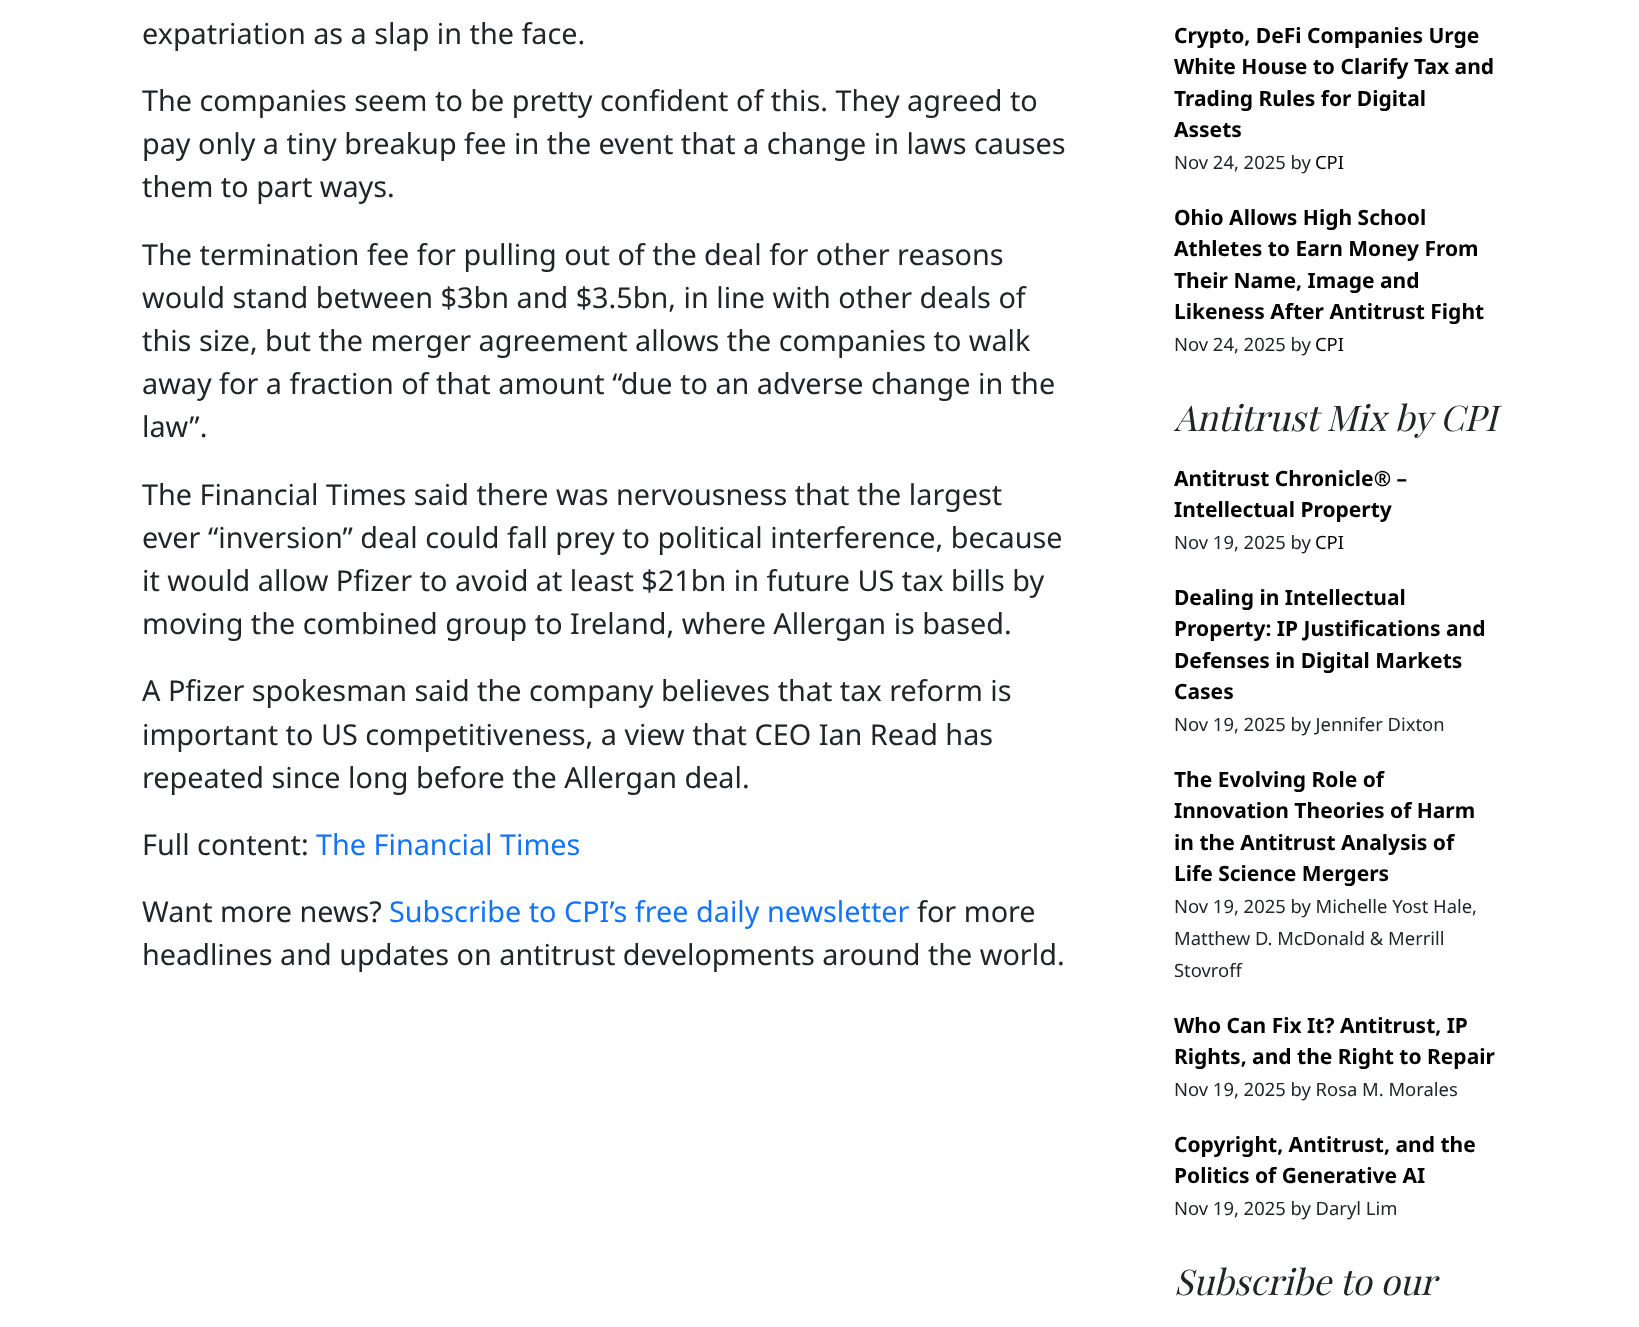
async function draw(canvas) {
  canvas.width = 1639;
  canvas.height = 1327;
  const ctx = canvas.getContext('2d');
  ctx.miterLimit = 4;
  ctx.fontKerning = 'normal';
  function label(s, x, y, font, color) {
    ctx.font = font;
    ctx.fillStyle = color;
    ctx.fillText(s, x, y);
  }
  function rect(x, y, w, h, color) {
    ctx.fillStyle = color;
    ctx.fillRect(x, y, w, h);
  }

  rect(0, 0, 1639, 1327, '#fff');
  label('expatriation as a slap in the face.', 142, 44, '28.8px Noto Sans', '#212529');
  label('The companies seem to be pretty confident of this. They agreed to', 142, 111, '28.8px Noto Sans', '#212529');
  label('pay only a tiny breakup fee in the event that a change in laws causes', 142, 154, '28.8px Noto Sans', '#212529');
  label('them to part ways.', 142, 197, '28.8px Noto Sans', '#212529');
  label('The termination fee for pulling out of the deal for other reasons', 142, 265, '28.8px Noto Sans', '#212529');
  label('would stand between $3bn and $3.5bn, in line with other deals of', 142, 308, '28.8px Noto Sans', '#212529');
  label('this size, but the merger agreement allows the companies to walk', 142, 351, '28.8px Noto Sans', '#212529');
  label('away for a fraction of that amount “due to an adverse change in the', 142, 394, '28.8px Noto Sans', '#212529');
  label('law”.', 142, 437, '28.8px Noto Sans', '#212529');
  label('The Financial Times said there was nervousness that the largest', 142, 505, '28.8px Noto Sans', '#212529');
  label('ever “inversion” deal could fall prey to political interference, because', 142, 548, '28.8px Noto Sans', '#212529');
  label('it would allow Pfizer to avoid at least $21bn in future US tax bills by', 142, 591, '28.8px Noto Sans', '#212529');
  label('moving the combined group to Ireland, where Allergan is based.', 142, 634, '28.8px Noto Sans', '#212529');
  label('A Pfizer spokesman said the company believes that tax reform is', 142, 701, '28.8px Noto Sans', '#212529');
  label('important to US competitiveness, a view that CEO Ian Read has', 142, 745, '28.8px Noto Sans', '#212529');
  label('repeated since long before the Allergan deal.', 142, 788, '28.8px Noto Sans', '#212529');
  label('Full content:', 142, 855, '28.8px Noto Sans', '#212529');
  label('The Financial Times', 316, 855, '28.8px Noto Sans', '#1373f9');
  label('Want more news?', 142, 922, '28.8px Noto Sans', '#212529');
  label('Subscribe to CPI’s free daily newsletter', 389, 922, '28.8px Noto Sans', '#1373f9');
  label('for more', 917, 922, '28.8px Noto Sans', '#212529');
  label('headlines and updates on antitrust developments around the world.', 142, 965, '28.8px Noto Sans', '#212529');
  label('Crypto, DeFi Companies Urge', 1174, 43, 'bold 21px Noto Sans', '#000');
  label('White House to Clarify Tax and', 1174, 74, 'bold 21px Noto Sans', '#000');
  label('Trading Rules for Digital', 1174, 106, 'bold 21px Noto Sans', '#000');
  label('Assets', 1174, 137, 'bold 21px Noto Sans', '#000');
  label('Nov 24, 2025 by', 1174, 169, '18.4px Noto Sans', '#212529');
  label('CPI', 1315, 169, '18.4px Noto Sans', '#000');
  label('Ohio Allows High School', 1174, 225, 'bold 21px Noto Sans', '#000');
  label('Athletes to Earn Money From', 1174, 256, 'bold 21px Noto Sans', '#000');
  label('Their Name, Image and', 1174, 288, 'bold 21px Noto Sans', '#000');
  label('Likeness After Antitrust Fight', 1174, 319, 'bold 21px Noto Sans', '#000');
  label('Nov 24, 2025 by', 1174, 351, '18.4px Noto Sans', '#212529');
  label('CPI', 1315, 351, '18.4px Noto Sans', '#000');
  label('Antitrust Mix by CPI', 1174, 431, 'italic 35.5px Playfair Display', '#212529');
  label('Antitrust Chronicle® –', 1174, 486, 'bold 21px Noto Sans', '#000');
  label('Intellectual Property', 1174, 517, 'bold 21px Noto Sans', '#000');
  label('Nov 19, 2025 by', 1174, 549, '18.4px Noto Sans', '#212529');
  label('CPI', 1315, 549, '18.4px Noto Sans', '#000');
  label('Dealing in Intellectual', 1174, 605, 'bold 21px Noto Sans', '#000');
  label('Property: IP Justifications and', 1174, 636, 'bold 21px Noto Sans', '#000');
  label('Defenses in Digital Markets', 1174, 668, 'bold 21px Noto Sans', '#000');
  label('Cases', 1174, 699, 'bold 21px Noto Sans', '#000');
  label('Nov 19, 2025 by Jennifer Dixton', 1174, 731, '18.4px Noto Sans', '#212529');
  label('The Evolving Role of', 1174, 787, 'bold 21px Noto Sans', '#000');
  label('Innovation Theories of Harm', 1174, 818, 'bold 21px Noto Sans', '#000');
  label('in the Antitrust Analysis of', 1174, 850, 'bold 21px Noto Sans', '#000');
  label('Life Science Mergers', 1174, 881, 'bold 21px Noto Sans', '#000');
  label('Nov 19, 2025 by Michelle Yost Hale,', 1174, 913, '18.4px Noto Sans', '#212529');
  label('Matthew D. McDonald & Merrill', 1174, 945, '18.4px Noto Sans', '#212529');
  label('Stovroff', 1174, 977, '18.4px Noto Sans', '#212529');
  label('Who Can Fix It? Antitrust, IP', 1174, 1033, 'bold 21px Noto Sans', '#000');
  label('Rights, and the Right to Repair', 1174, 1064, 'bold 21px Noto Sans', '#000');
  label('Nov 19, 2025 by Rosa M. Morales', 1174, 1096, '18.4px Noto Sans', '#212529');
  label('Copyright, Antitrust, and the', 1174, 1152, 'bold 21px Noto Sans', '#000');
  label('Politics of Generative AI', 1174, 1183, 'bold 21px Noto Sans', '#000');
  label('Nov 19, 2025 by Daryl Lim', 1174, 1215, '18.4px Noto Sans', '#212529');
  label('Subscribe to our', 1174, 1295, 'italic 35.5px Playfair Display', '#212529');
}

draw(document.querySelector('canvas'));
